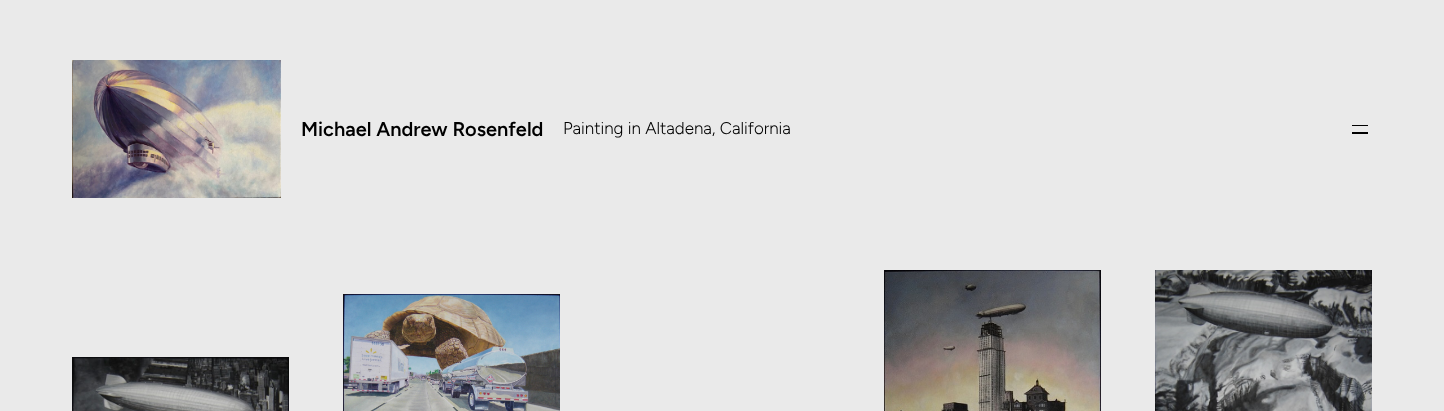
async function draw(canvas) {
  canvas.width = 1444;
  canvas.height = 411;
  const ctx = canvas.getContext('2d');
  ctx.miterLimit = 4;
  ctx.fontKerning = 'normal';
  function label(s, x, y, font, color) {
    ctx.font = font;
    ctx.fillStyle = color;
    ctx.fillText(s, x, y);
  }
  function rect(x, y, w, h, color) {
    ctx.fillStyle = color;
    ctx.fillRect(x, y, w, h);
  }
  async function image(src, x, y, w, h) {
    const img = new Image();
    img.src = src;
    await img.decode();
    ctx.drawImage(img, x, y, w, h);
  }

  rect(0, 0, 1444, 411, '#eaeaea');
  await image('assets/img1.png', 72, 60, 209, 138);
  label('Michael Andrew Rosenfeld', 301, 136, '600 20px Figtree', '#000');
  label('Painting in Altadena, California', 563, 134, '300 17px Figtree', '#000');
  rect(1352, 125, 16, 1, '#000');
  rect(1352, 132, 16, 2, '#000');
  await image('assets/img2.png', 72, 357, 217, 54);
  await image('assets/img3.png', 343, 294, 217, 117);
  await image('assets/img4.png', 884, 270, 217, 141);
  await image('assets/img5.png', 1155, 270, 217, 141);
}

draw(document.querySelector('canvas'));
